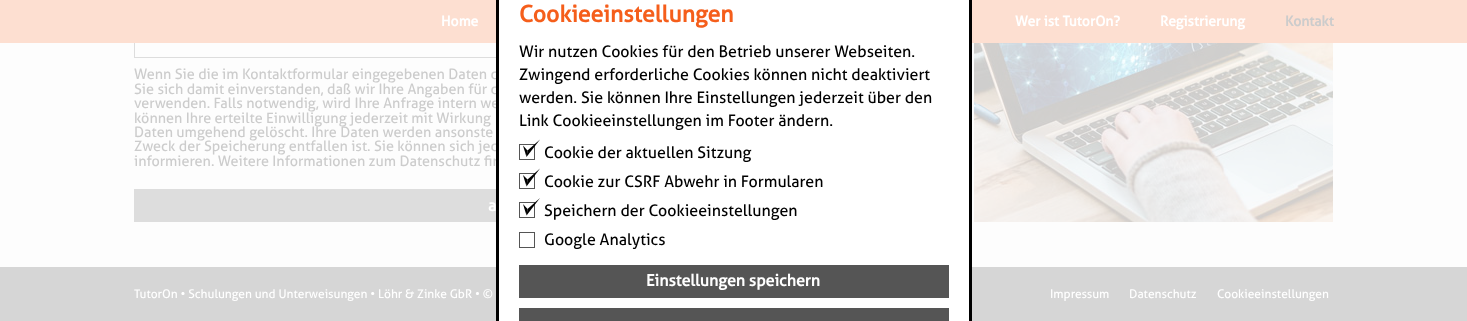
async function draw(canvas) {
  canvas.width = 1467;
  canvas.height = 321;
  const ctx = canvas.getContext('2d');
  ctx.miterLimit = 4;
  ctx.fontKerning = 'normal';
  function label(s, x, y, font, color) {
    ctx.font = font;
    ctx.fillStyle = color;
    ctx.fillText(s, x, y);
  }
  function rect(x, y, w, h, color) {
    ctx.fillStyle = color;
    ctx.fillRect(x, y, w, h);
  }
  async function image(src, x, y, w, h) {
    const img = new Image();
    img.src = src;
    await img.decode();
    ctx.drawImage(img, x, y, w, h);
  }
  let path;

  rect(0, 0, 1467, 321, '#fdfdfd');
  ctx.strokeStyle = '#ddd';
  ctx.strokeRect(134.5, -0.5, 779, 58);
  rect(0, 0, 1467, 43, '#fddfd1');
  label('Wenn Sie die im Kontaktformular eingegebenen Daten d', 134, 79, '14.4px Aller', '#ccc');
  label('Sie sich damit einverstanden, daß wir Ihre Angaben für d', 134, 94, '14.4px Aller', '#ccc');
  label('verwenden. Falls notwendig, wird Ihre Anfrage intern we', 134, 108, '14.4px Aller', '#ccc');
  label('Zweck der Speicherung entfallen ist. Sie können sich jed', 134, 151, '14.4px Aller', '#ccc');
  label('informieren. Weitere Informationen zum Datenschutz fin', 134, 166, '14.4px Aller', '#ccc');
  rect(0, 267, 1467, 54, '#d6d6d6');
  ctx.fillStyle = '#fff';
  ctx.beginPath();
  ctx.rect(497.5, -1.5, 473, 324);
  ctx.fill();
  ctx.strokeStyle = '#000';
  ctx.lineWidth = 3;
  ctx.stroke();
  label('Cookieeinstellungen', 519, 22, 'bold 23px Aller', '#f55e1b');
  label('Wir nutzen Cookies für den Betrieb unserer Webseiten.', 519, 57, '16px Aller', '#000');
  label('Zwingend erforderliche Cookies können nicht deaktiviert', 519, 80, '16px Aller', '#000');
  label('werden. Sie können Ihre Einstellungen jederzeit über den', 519, 103, '16px Aller', '#000');
  label('Link Cookieeinstellungen im Footer ändern.', 519, 126, '16px Aller', '#000');
  ctx.strokeStyle = '#555';
  ctx.lineWidth = 1;
  ctx.strokeRect(519.5, 144.5, 15, 15);
  path = new Path2D('M540 139.5L526.5 157L527.5 150.5Z');
  ctx.fill(path);
  path = new Path2D('M526.5 157L523 145.5L527.5 150.5Z');
  ctx.fill(path);
  label('Cookie der aktuellen Sitzung', 544, 158, '16px Aller', '#000');
  ctx.strokeRect(519.5, 173.5, 15, 15);
  path = new Path2D('M540 168.5L526.5 186.5L527.5 179.5Z');
  ctx.fill(path);
  path = new Path2D('M526.5 186.5L523 175L527.5 179.5Z');
  ctx.fill(path);
  label('Cookie zur CSRF Abwehr in Formularen', 544, 187, '16px Aller', '#000');
  ctx.strokeRect(519.5, 202.5, 15, 15);
  path = new Path2D('M540 198L526.5 215.5L527.5 209Z');
  ctx.fill(path);
  path = new Path2D('M526.5 215.5L523 204L527.5 209Z');
  ctx.fill(path);
  label('Speichern der Cookieeinstellungen', 544, 216, '16px Aller', '#000');
  ctx.strokeRect(519.5, 232.5, 15, 15);
  label('Google Analytics', 544, 245, '16px Aller', '#000');
  rect(519, 265, 430, 33, '#555');
  label('Einstellungen speichern', 646, 286, 'bold 16px Aller', '#fff');
  rect(519, 308, 430, 13, '#555');
  label('Home', 441, 26, 'bold 14px Aller', '#fff');
  label('Wer ist TutorOn?', 1015, 26, 'bold 14px Aller', '#fff');
  label('Registrierung', 1160, 26, 'bold 14px Aller', '#fff');
  label('Kontakt', 1285, 26, 'bold 14px Aller', '#ccc');
  label('können Ihre erteilte Einwilligung jederzeit mit Wirkung', 134, 123, '14.4px Aller', '#ccc');
  label('Daten umgehend gelöscht. Ihre Daten werden ansonste', 134, 137, '14.4px Aller', '#ccc');
  rect(134, 189, 362, 33, '#ddd');
  label('a', 488, 211, 'bold 16px Aller', '#fff');
  await image('assets/img1.png', 974, 43, 359, 179);
  label('TutorOn • Schulungen und Unterweisungen • Löhr & Zinke GbR • ©', 134, 298, '12px Aller', '#fff');
  label('Impressum', 1050, 298, '12px Aller', '#fff');
  label('Datenschutz', 1129, 298, '12px Aller', '#fff');
  label('Cookieeinstellungen', 1217, 298, '12px Aller', '#fff');
}

draw(document.querySelector('canvas'));
